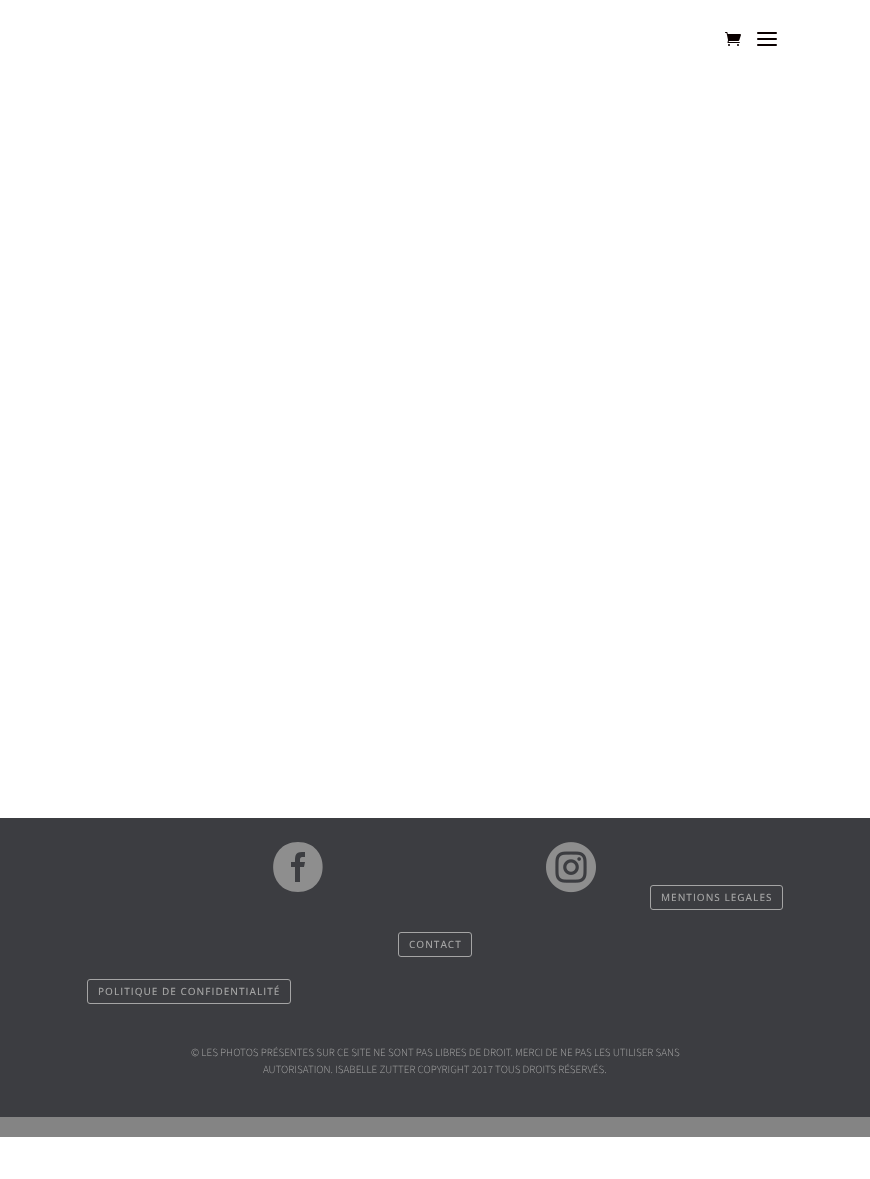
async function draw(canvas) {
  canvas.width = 870;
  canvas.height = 1179;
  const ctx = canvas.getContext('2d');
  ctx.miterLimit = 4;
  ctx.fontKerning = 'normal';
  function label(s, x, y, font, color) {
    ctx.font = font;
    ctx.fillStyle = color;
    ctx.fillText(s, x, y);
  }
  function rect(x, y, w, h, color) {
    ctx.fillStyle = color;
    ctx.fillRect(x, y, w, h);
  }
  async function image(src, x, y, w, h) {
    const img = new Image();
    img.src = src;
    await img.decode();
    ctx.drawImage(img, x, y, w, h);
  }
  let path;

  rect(0, 0, 870, 1179, '#fff');
  await image('assets/img1.png', 725, 32, 16, 14);
  await image('assets/img2.png', 757, 32, 20, 14);
  rect(0, 818, 870, 299, '#3c3d41');
  ctx.fillStyle = '#8e8e8e';
  path = new Path2D('M298 842C265 842 265 892 298 892C331 892 331 842 298 842ZM304 867H300V882H295V867H291V862H295C295 853 296 852 305 852V857C300 857 300 857 300 862H305Z');
  ctx.fill(path);
  await image('assets/img3.png', 546, 842, 50, 51);
  ctx.beginPath();
  ctx.roundRect(650.5, 885.5, 132, 24, 2.5);
  ctx.strokeStyle = '#a5a5a5';
  ctx.stroke();
  ctx.letterSpacing = '1px';
  label('MENTIONS LEGALES', 661, 901, '500 10px Open Sans', '#a5a5a5');
  ctx.beginPath();
  ctx.roundRect(398.5, 932.5, 73, 24, 2.5);
  ctx.stroke();
  label('CONTACT', 409, 948, '500 10px Open Sans', '#a5a5a5');
  ctx.beginPath();
  ctx.roundRect(87.5, 979.5, 203, 24, 2.5);
  ctx.stroke();
  label('POLITIQUE DE CONFIDENTIALITÉ', 98, 995, '500 10px Open Sans', '#a5a5a5');
  ctx.letterSpacing = '0px';
  label('© LES PHOTOS PRÉSENTES SUR CE SITE NE SONT PAS LIBRES DE DROIT. MERCI DE NE PAS LES UTILISER SANS', 191, 1056, '300 11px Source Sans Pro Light', '#a5a5a5');
  label('AUTORISATION. ISABELLE ZUTTER COPYRIGHT 2017 TOUS DROITS RÉSERVÉS.', 263, 1073, '300 11px Source Sans Pro Light', '#a5a5a5');
  rect(0, 1117, 870, 20, '#848484');
}

draw(document.querySelector('canvas'));
